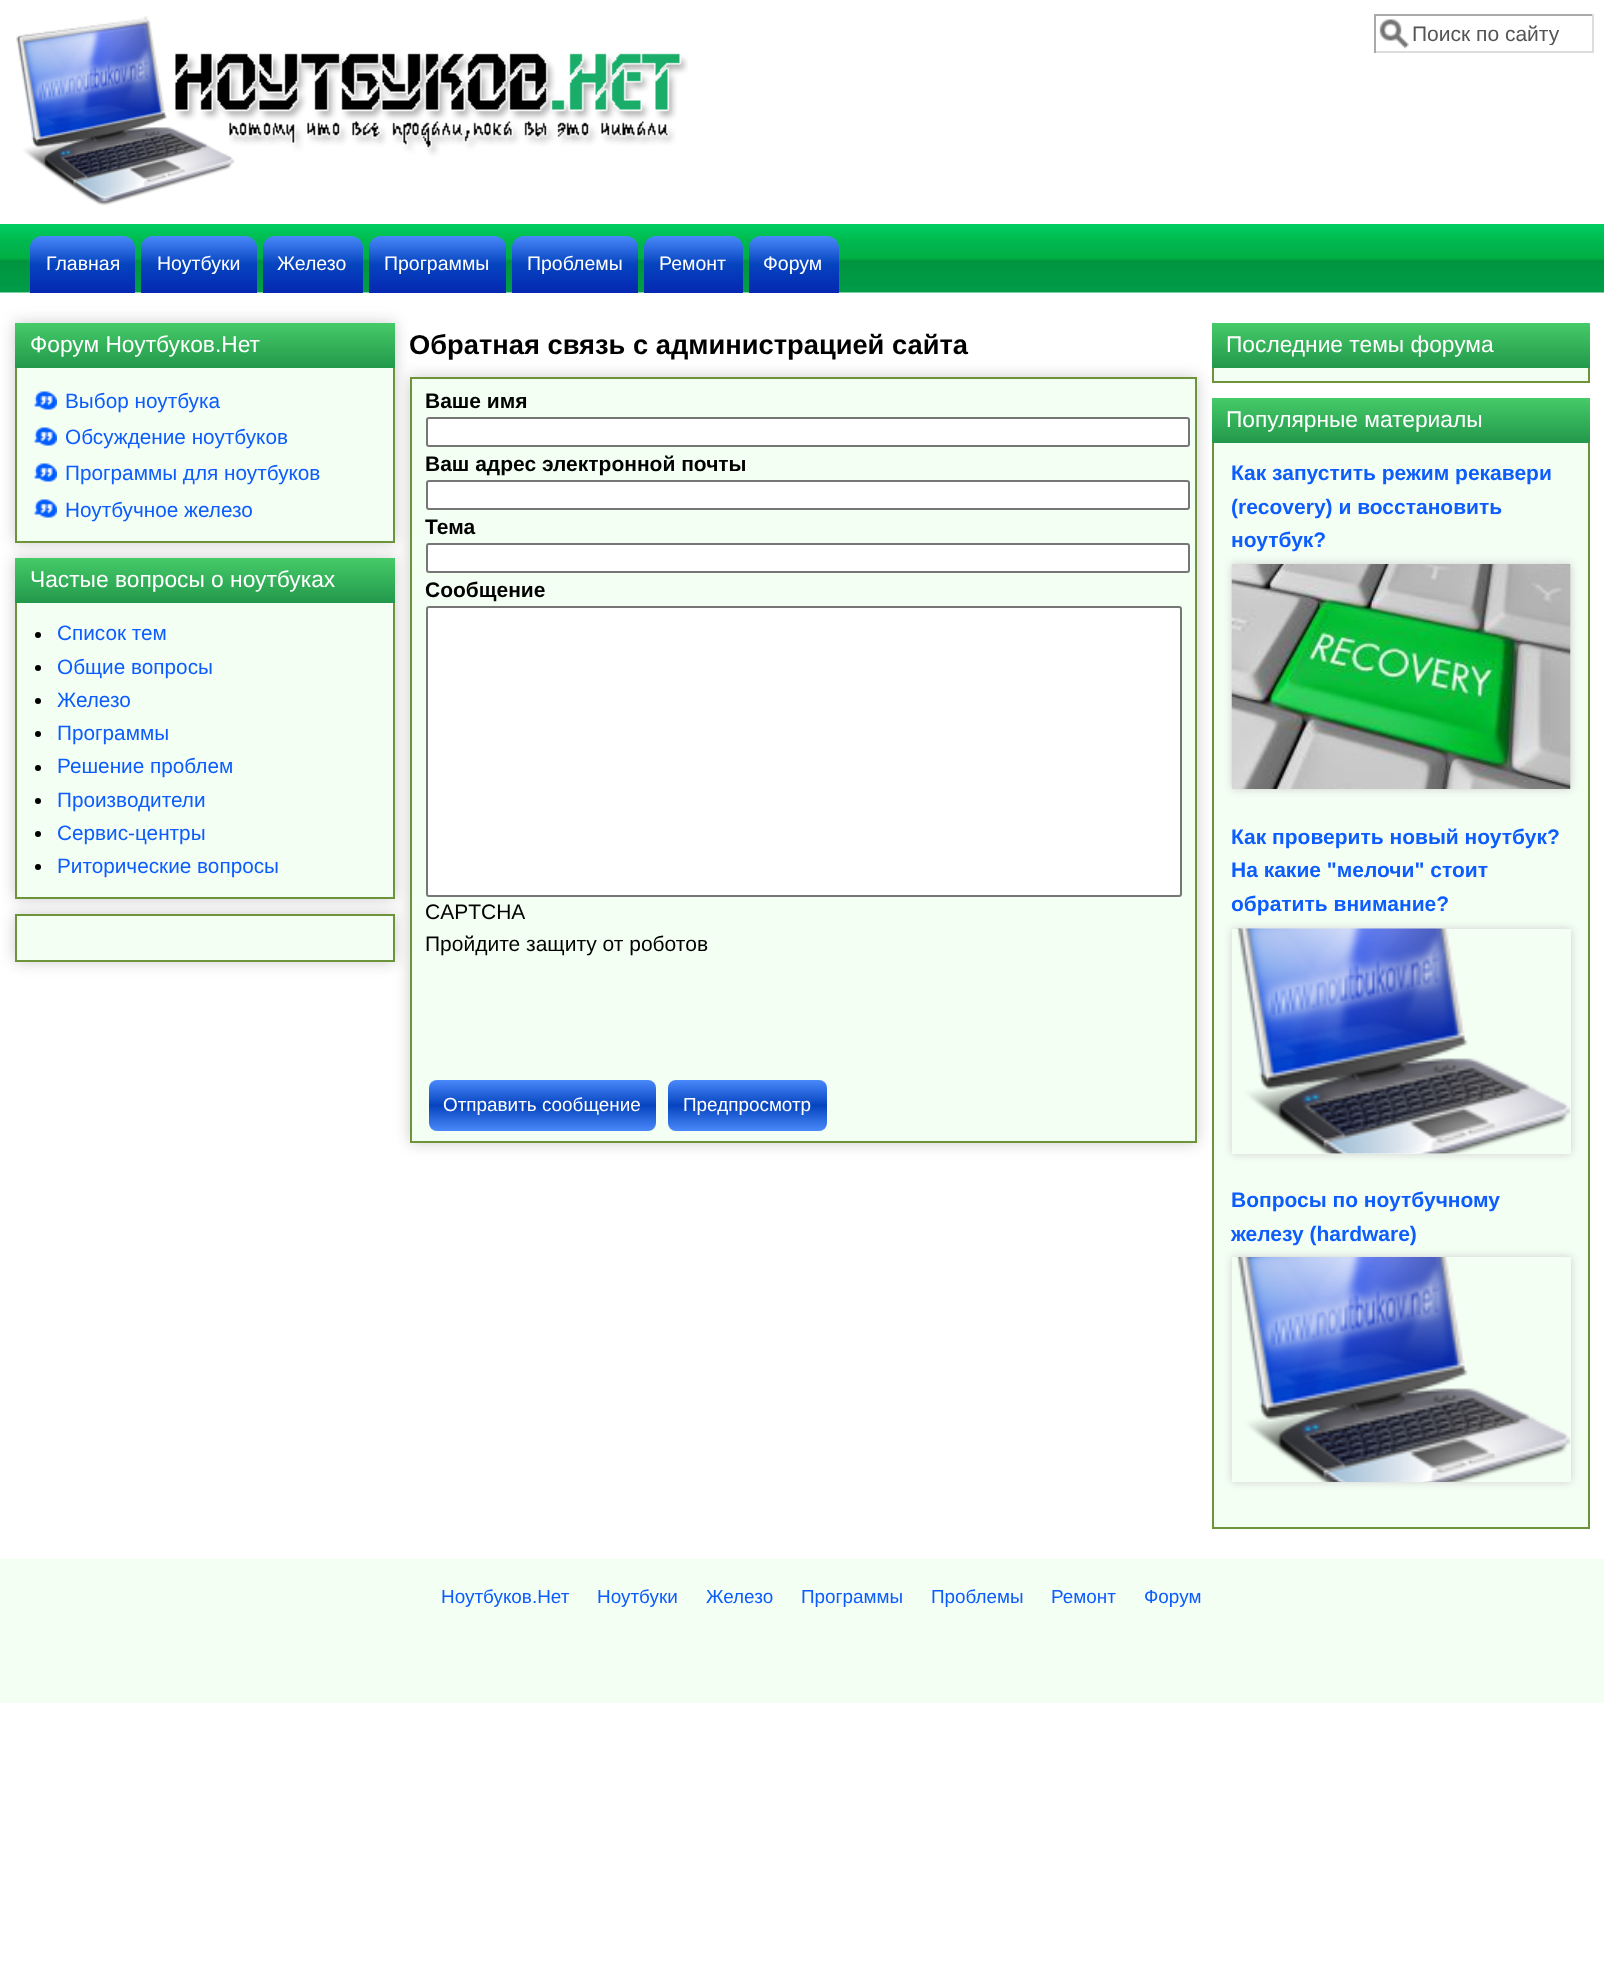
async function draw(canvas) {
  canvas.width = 1604;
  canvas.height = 1981;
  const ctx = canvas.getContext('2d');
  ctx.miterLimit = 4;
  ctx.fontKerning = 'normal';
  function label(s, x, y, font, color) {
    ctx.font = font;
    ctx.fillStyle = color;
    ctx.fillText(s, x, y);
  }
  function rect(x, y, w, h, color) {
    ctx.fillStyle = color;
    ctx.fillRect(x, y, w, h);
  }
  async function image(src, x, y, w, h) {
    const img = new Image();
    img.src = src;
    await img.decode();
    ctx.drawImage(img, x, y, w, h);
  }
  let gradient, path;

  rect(0, 0, 1604, 1981, '#fff');
  await image('assets/img1.png', 16, 16, 672, 190);
  await image('assets/img2.png', 1379, 19, 30, 30);
  rect(1374, 14, 219, 2, '#aaa');
  rect(1592, 14, 2, 39, '#ddd');
  rect(1374, 51, 219, 2, '#ddd');
  rect(1374, 14, 2, 39, '#aaa');
  ctx.save();
  ctx.beginPath();
  ctx.rect(1412, 21, 168, 24);
  ctx.clip();
  label('Поиск по сайту', 1412, 41, '21px Liberation Sans', '#555');
  ctx.restore();
  await image('assets/img3.png', 0, 224, 1604, 69);
  gradient = ctx.createLinearGradient(83, 293, 83, 236);
  gradient.addColorStop(0, '#0527b1');
  gradient.addColorStop(0.5, '#0644bf');
  gradient.addColorStop(1, '#4a89fb');
  ctx.fillStyle = gradient;
  ctx.beginPath();
  ctx.roundRect(30, 236, 105, 57, [12, 12, 0, 0]);
  ctx.fill();
  label('Главная', 46, 270, '19.5px Liberation Sans', '#fff');
  gradient = ctx.createLinearGradient(199, 293, 199, 236);
  gradient.addColorStop(0, '#0527b1');
  gradient.addColorStop(0.5, '#0644bf');
  gradient.addColorStop(1, '#4a89fb');
  ctx.fillStyle = gradient;
  ctx.beginPath();
  ctx.roundRect(141, 236, 116, 57, [12, 12, 0, 0]);
  ctx.fill();
  label('Ноутбуки', 157, 270, '19.5px Liberation Sans', '#fff');
  gradient = ctx.createLinearGradient(313, 293, 313, 236);
  gradient.addColorStop(0, '#0527b1');
  gradient.addColorStop(0.5, '#0644bf');
  gradient.addColorStop(1, '#4a89fb');
  ctx.fillStyle = gradient;
  ctx.beginPath();
  ctx.roundRect(263, 236, 100, 57, [12, 12, 0, 0]);
  ctx.fill();
  label('Железо', 277, 270, '19.5px Liberation Sans', '#fff');
  gradient = ctx.createLinearGradient(437, 293, 437, 236);
  gradient.addColorStop(0, '#0527b1');
  gradient.addColorStop(0.5, '#0644bf');
  gradient.addColorStop(1, '#4a89fb');
  ctx.fillStyle = gradient;
  ctx.beginPath();
  ctx.roundRect(369, 236, 137, 57, [12, 12, 0, 0]);
  ctx.fill();
  label('Программы', 384, 270, '19.5px Liberation Sans', '#fff');
  gradient = ctx.createLinearGradient(575, 293, 575, 236);
  gradient.addColorStop(0, '#0527b1');
  gradient.addColorStop(0.5, '#0644bf');
  gradient.addColorStop(1, '#4a89fb');
  ctx.fillStyle = gradient;
  ctx.beginPath();
  ctx.roundRect(512, 236, 126, 57, [12, 12, 0, 0]);
  ctx.fill();
  label('Проблемы', 527, 270, '19.5px Liberation Sans', '#fff');
  gradient = ctx.createLinearGradient(693, 293, 693, 236);
  gradient.addColorStop(0, '#0527b1');
  gradient.addColorStop(0.5, '#0644bf');
  gradient.addColorStop(1, '#4a89fb');
  ctx.fillStyle = gradient;
  ctx.beginPath();
  ctx.roundRect(644, 236, 99, 57, [12, 12, 0, 0]);
  ctx.fill();
  label('Ремонт', 659, 270, '19.5px Liberation Sans', '#fff');
  gradient = ctx.createLinearGradient(794, 293, 794, 236);
  gradient.addColorStop(0, '#0527b1');
  gradient.addColorStop(0.5, '#0644bf');
  gradient.addColorStop(1, '#4a89fb');
  ctx.fillStyle = gradient;
  ctx.beginPath();
  ctx.roundRect(749, 236, 90, 57, [12, 12, 0, 0]);
  ctx.fill();
  label('Форум', 763, 270, '19.5px Liberation Sans', '#fff');
  ctx.fillStyle = '#ccc';
  ctx.filter = 'blur(7.5px)';
  ctx.beginPath();
  ctx.rect(410, 377, 787, 766);
  ctx.fill();
  ctx.filter = 'none';
  ctx.fillStyle = '#f4fff4';
  ctx.beginPath();
  ctx.rect(411, 378, 785, 764);
  ctx.fill();
  ctx.strokeStyle = '#6d943a';
  ctx.lineWidth = 2;
  ctx.stroke();
  ctx.fillStyle = '#ccc';
  ctx.filter = 'blur(7.5px)';
  ctx.beginPath();
  ctx.rect(15, 323, 380, 220);
  ctx.fill();
  ctx.filter = 'none';
  rect(17, 368, 376, 173, '#f4fff4');
  ctx.strokeRect(16, 324, 378, 218);
  gradient = ctx.createLinearGradient(205, 368, 205, 323);
  gradient.addColorStop(0, '#22984b');
  gradient.addColorStop(1, '#46cb68');
  ctx.fillStyle = gradient;
  ctx.fillRect(15, 323, 380, 45);
  label('Форум Ноутбуков.Нет', 30, 352, '22.75px Liberation Sans', '#fff');
  await image('assets/img4.png', 34, 391, 23, 19);
  label('Выбор ноутбука', 65, 408, '20.75px Liberation Sans', '#0d5cfc');
  await image('assets/img4.png', 34, 427, 23, 19);
  label('Обсуждение ноутбуков', 65, 444, '20.75px Liberation Sans', '#0d5cfc');
  await image('assets/img4.png', 34, 463, 23, 19);
  label('Программы для ноутбуков', 65, 480, '20.75px Liberation Sans', '#0d5cfc');
  await image('assets/img4.png', 34, 499, 23, 19);
  label('Ноутбучное железо', 65, 517, '20.75px Liberation Sans', '#0d5cfc');
  ctx.fillStyle = '#ccc';
  ctx.filter = 'blur(7.5px)';
  ctx.beginPath();
  ctx.rect(15, 558, 380, 341);
  ctx.fill();
  ctx.filter = 'none';
  rect(17, 603, 376, 294, '#f4fff4');
  ctx.strokeRect(16, 559, 378, 339);
  gradient = ctx.createLinearGradient(205, 603, 205, 558);
  gradient.addColorStop(0, '#22984b');
  gradient.addColorStop(1, '#46cb68');
  ctx.fillStyle = gradient;
  ctx.fillRect(15, 558, 380, 45);
  label('Частые вопросы о ноутбуках', 30, 587, '22.75px Liberation Sans', '#fff');
  ctx.fillStyle = '#000';
  ctx.beginPath();
  ctx.arc(38, 635, 3, 0, 2 * Math.PI);
  ctx.fill();
  label('Список тем', 57, 640, '20.75px Liberation Sans', '#0d5cfc');
  ctx.fillStyle = '#000';
  ctx.beginPath();
  ctx.arc(38, 668, 3, 0, 2 * Math.PI);
  ctx.fill();
  label('Общие вопросы', 57, 674, '20.75px Liberation Sans', '#0d5cfc');
  ctx.fillStyle = '#000';
  ctx.beginPath();
  ctx.arc(38, 701, 3, 0, 2 * Math.PI);
  ctx.fill();
  label('Железо', 57, 707, '20.75px Liberation Sans', '#0d5cfc');
  ctx.fillStyle = '#000';
  ctx.beginPath();
  ctx.arc(38, 734, 3, 0, 2 * Math.PI);
  ctx.fill();
  label('Программы', 57, 740, '20.75px Liberation Sans', '#0d5cfc');
  ctx.fillStyle = '#000';
  ctx.beginPath();
  ctx.arc(38, 768, 3, 0, 2 * Math.PI);
  ctx.fill();
  label('Решение проблем', 57, 773, '20.75px Liberation Sans', '#0d5cfc');
  ctx.fillStyle = '#000';
  ctx.beginPath();
  ctx.arc(38, 801, 3, 0, 2 * Math.PI);
  ctx.fill();
  label('Производители', 57, 807, '20.75px Liberation Sans', '#0d5cfc');
  ctx.fillStyle = '#000';
  ctx.beginPath();
  ctx.arc(38, 834, 3, 0, 2 * Math.PI);
  ctx.fill();
  label('Сервис-центры', 57, 840, '20.75px Liberation Sans', '#0d5cfc');
  ctx.fillStyle = '#000';
  ctx.beginPath();
  ctx.arc(38, 867, 3, 0, 2 * Math.PI);
  ctx.fill();
  label('Риторические вопросы', 57, 873, '20.75px Liberation Sans', '#0d5cfc');
  ctx.fillStyle = '#ccc';
  ctx.filter = 'blur(7.5px)';
  ctx.beginPath();
  ctx.rect(15, 914, 380, 48);
  ctx.fill();
  ctx.filter = 'none';
  ctx.fillStyle = '#f4fff4';
  ctx.beginPath();
  ctx.rect(16, 915, 378, 46);
  ctx.fill();
  ctx.stroke();
  label('Обратная связь с администрацией сайта', 409, 354, 'bold 27.3px Liberation Sans', '#000');
  label('Ваше имя', 425, 408, 'bold 21px Liberation Sans', '#000');
  ctx.fillStyle = '#fff';
  ctx.beginPath();
  ctx.roundRect(427, 418, 762, 28, 2);
  ctx.fill();
  ctx.strokeStyle = '#767676';
  ctx.stroke();
  label('Ваш адрес электронной почты', 425, 471, 'bold 21px Liberation Sans', '#000');
  ctx.fillStyle = '#fff';
  ctx.beginPath();
  ctx.roundRect(427, 481, 762, 28, 2);
  ctx.fill();
  ctx.stroke();
  label('Тема', 425, 534, 'bold 21px Liberation Sans', '#000');
  ctx.fillStyle = '#fff';
  ctx.beginPath();
  ctx.roundRect(427, 544, 762, 28, 2);
  ctx.fill();
  ctx.stroke();
  label('Сообщение', 425, 597, 'bold 21px Liberation Sans', '#000');
  ctx.fillStyle = '#fff';
  ctx.beginPath();
  ctx.roundRect(427, 607, 754, 289, 2);
  ctx.fill();
  ctx.stroke();
  label('CAPTCHA', 425, 919, '21px Liberation Sans', '#000');
  label('Пройдите защиту от роботов', 425, 951, '21px Liberation Sans', '#000');
  gradient = ctx.createLinearGradient(542, 1131, 542, 1080);
  gradient.addColorStop(0, '#4a89fb');
  gradient.addColorStop(0.5, '#0644bf');
  gradient.addColorStop(1, '#4a89fb');
  ctx.fillStyle = gradient;
  ctx.beginPath();
  ctx.roundRect(429, 1080, 227, 51, 8);
  ctx.fill();
  label('Отправить сообщение', 443, 1111, '18.9px Liberation Sans', '#fff');
  gradient = ctx.createLinearGradient(747, 1131, 747, 1080);
  gradient.addColorStop(0, '#4a89fb');
  gradient.addColorStop(0.5, '#0644bf');
  gradient.addColorStop(1, '#4a89fb');
  ctx.fillStyle = gradient;
  ctx.beginPath();
  ctx.roundRect(668, 1080, 159, 51, 8);
  ctx.fill();
  label('Предпросмотр', 683, 1111, '18.9px Liberation Sans', '#fff');
  rect(1214, 368, 374, 13, '#f4fff4');
  ctx.strokeStyle = '#6d943a';
  ctx.strokeRect(1213, 324, 376, 58);
  gradient = ctx.createLinearGradient(1401, 368, 1401, 323);
  gradient.addColorStop(0, '#22984b');
  gradient.addColorStop(1, '#46cb68');
  ctx.fillStyle = gradient;
  ctx.fillRect(1212, 323, 378, 45);
  label('Последние темы форума', 1226, 352, '22.75px Liberation Sans', '#fff');
  rect(1214, 443, 374, 1084, '#f4fff4');
  ctx.strokeRect(1213, 399, 376, 1129);
  gradient = ctx.createLinearGradient(1401, 443, 1401, 398);
  gradient.addColorStop(0, '#22984b');
  gradient.addColorStop(1, '#46cb68');
  ctx.fillStyle = gradient;
  ctx.fillRect(1212, 398, 378, 45);
  label('Популярные материалы', 1226, 427, '22.75px Liberation Sans', '#fff');
  label('Как запустить режим рекавери', 1231, 480, 'bold 21px Liberation Sans', '#0d5cfc');
  label('(recovery) и восстановить', 1231, 514, 'bold 21px Liberation Sans', '#0d5cfc');
  label('ноутбук?', 1231, 547, 'bold 21px Liberation Sans', '#0d5cfc');
  ctx.fillStyle = '#ccc';
  ctx.filter = 'blur(4px)';
  ctx.beginPath();
  ctx.rect(1232, 564, 339, 225);
  ctx.fill();
  ctx.filter = 'none';
  await image('assets/img5.png', 1231, 564, 340, 225);
  label('Как проверить новый ноутбук?', 1231, 844, 'bold 21px Liberation Sans', '#0d5cfc');
  label('На какие "мелочи" стоит', 1231, 877, 'bold 21px Liberation Sans', '#0d5cfc');
  label('обратить внимание?', 1231, 911, 'bold 21px Liberation Sans', '#0d5cfc');
  ctx.save();
  path = new Path2D('M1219 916H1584V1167H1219ZM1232 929H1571V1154H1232Z');
  ctx.clip(path, 'evenodd');
  ctx.fillStyle = '#ccc';
  ctx.filter = 'blur(4px)';
  ctx.beginPath();
  ctx.rect(1232, 929, 339, 225);
  ctx.fill();
  ctx.filter = 'none';
  ctx.restore();
  await image('assets/img6.png', 1236, 928, 335, 226);
  label('Вопросы по ноутбучному', 1231, 1207, 'bold 21px Liberation Sans', '#0d5cfc');
  label('железу (hardware)', 1231, 1241, 'bold 21px Liberation Sans', '#0d5cfc');
  ctx.save();
  path = new Path2D('M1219 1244H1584V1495H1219ZM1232 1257H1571V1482H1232Z');
  ctx.clip(path, 'evenodd');
  ctx.fillStyle = '#ccc';
  ctx.filter = 'blur(4px)';
  ctx.beginPath();
  ctx.rect(1232, 1257, 339, 225);
  ctx.fill();
  ctx.filter = 'none';
  ctx.restore();
  await image('assets/img7.png', 1236, 1257, 335, 225);
  rect(0, 1559, 1604, 144, '#f4fff4');
  label('Ноутбуков.Нет', 441, 1603, '18.9px Liberation Sans', '#0d5cfc');
  label('Ноутбуки', 597, 1603, '18.9px Liberation Sans', '#0d5cfc');
  label('Железо', 706, 1603, '18.9px Liberation Sans', '#0d5cfc');
  label('Программы', 801, 1603, '18.9px Liberation Sans', '#0d5cfc');
  label('Проблемы', 931, 1603, '18.9px Liberation Sans', '#0d5cfc');
  label('Ремонт', 1051, 1603, '18.9px Liberation Sans', '#0d5cfc');
  label('Форум', 1144, 1603, '18.9px Liberation Sans', '#0d5cfc');
}

draw(document.querySelector('canvas'));
